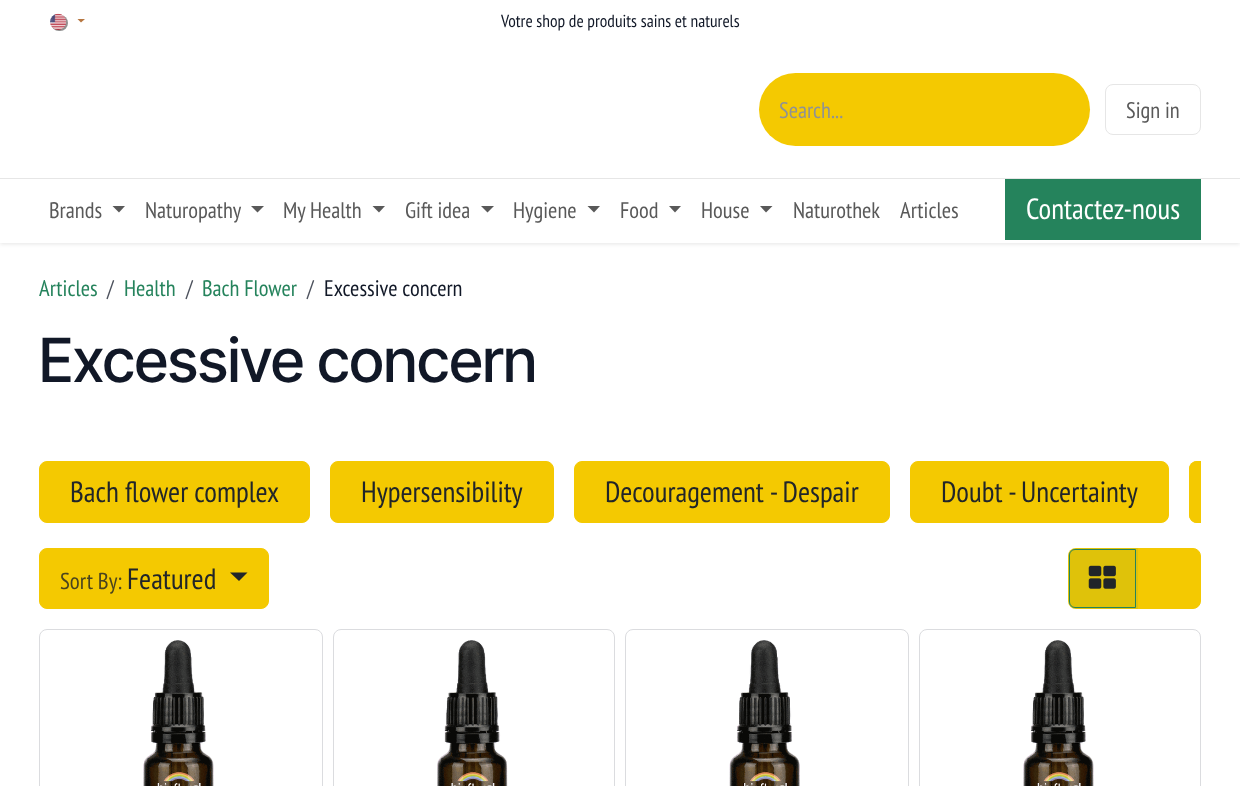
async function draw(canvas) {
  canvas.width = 1240;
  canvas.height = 786;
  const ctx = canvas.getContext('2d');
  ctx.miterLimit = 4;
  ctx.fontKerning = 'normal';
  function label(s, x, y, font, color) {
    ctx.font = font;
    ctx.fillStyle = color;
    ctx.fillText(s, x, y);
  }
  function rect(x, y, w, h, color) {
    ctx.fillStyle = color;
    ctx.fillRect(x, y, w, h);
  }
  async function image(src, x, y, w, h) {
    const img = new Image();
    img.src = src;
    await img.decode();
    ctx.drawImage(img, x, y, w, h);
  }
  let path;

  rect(0, 0, 1240, 786, '#fff');
  ctx.fillStyle = '#0000001a';
  ctx.filter = 'blur(2px)';
  ctx.beginPath();
  ctx.rect(0, 1, 1240, 243);
  ctx.fill();
  ctx.filter = 'none';
  rect(0, 0, 1240, 243, '#fff');
  ctx.fillStyle = '#0000006e';
  ctx.filter = 'blur(0.5px)';
  ctx.beginPath();
  ctx.roundRect(51, 15, 17, 16, 8);
  ctx.fill();
  ctx.filter = 'none';
  await image('assets/img1.png', 50, 13, 16, 17);
  ctx.fillStyle = '#b77741';
  path = new Path2D('M77.5 19H85L81 22.5Z');
  ctx.fill(path);
  label('Votre shop de produits sains et naturels', 501, 27, '17.5px PT Sans Narrow', '#111827');
  ctx.fillStyle = '#f4c901';
  ctx.beginPath();
  ctx.roundRect(759, 73, 267, 73, [36.5, 0, 0, 36.5]);
  ctx.fill();
  label('Search...', 779, 118, '22.5px PT Sans Narrow', '#909294');
  ctx.fillStyle = '#f4c901';
  ctx.beginPath();
  ctx.roundRect(1025, 73, 65, 73, [0, 36.5, 36.5, 0]);
  ctx.fill();
  ctx.beginPath();
  ctx.roundRect(1105.5, 84.5, 95, 50, 7.5);
  ctx.strokeStyle = '#e6e6e6';
  ctx.stroke();
  label('Sign in', 1126, 118, '22.5px PT Sans Narrow', '#595959');
  rect(0, 178, 1240, 1, '#e6e6e6');
  label('Brands', 49, 218, '22.5px PT Sans Narrow', '#595959');
  path = new Path2D('M112.5 206H125L119 212.5Z');
  ctx.fill(path);
  label('Naturopathy', 145, 218, '22.5px PT Sans Narrow', '#595959');
  path = new Path2D('M251 206H264L257.5 212.5Z');
  ctx.fill(path);
  label('My Health', 283, 218, '22.5px PT Sans Narrow', '#595959');
  path = new Path2D('M372.5 206H385L379 212.5Z');
  ctx.fill(path);
  label('Gift idea', 405, 218, '22.5px PT Sans Narrow', '#595959');
  path = new Path2D('M481 206H494L487.5 212.5Z');
  ctx.fill(path);
  label('Hygiene', 513, 218, '22.5px PT Sans Narrow', '#595959');
  path = new Path2D('M587.5 206H600L594 212.5Z');
  ctx.fill(path);
  label('Food', 620, 218, '22.5px PT Sans Narrow', '#595959');
  path = new Path2D('M669 206H681L675 212.5Z');
  ctx.fill(path);
  label('House', 701, 218, '22.5px PT Sans Narrow', '#595959');
  path = new Path2D('M760 206H772.5L766 212.5Z');
  ctx.fill(path);
  label('Naturothek', 793, 218, '22.5px PT Sans Narrow', '#595959');
  label('Articles', 900, 218, '22.5px PT Sans Narrow', '#595959');
  rect(1005, 179, 196, 61, '#25835c');
  label('Contactez-nous', 1026, 219, '29.25px PT Sans Narrow', '#fff');
  label('Articles', 39, 296, '22.5px PT Sans Narrow', '#25835c');
  label('/', 107, 296, '22.5px PT Sans Narrow', '#4d525d');
  label('Health', 124, 296, '22.5px PT Sans Narrow', '#25835c');
  label('/', 186, 296, '22.5px PT Sans Narrow', '#4d525d');
  label('Bach Flower', 202, 296, '22.5px PT Sans Narrow', '#25835c');
  label('/', 307, 296, '22.5px PT Sans Narrow', '#4d525d');
  label('Excessive concern', 324, 296, '22.5px PT Sans Narrow', '#111827');
  label('Excessive concern', 39, 382, '500 60.75px Inter Tight', '#111827');
  ctx.fillStyle = '#f4c901';
  ctx.beginPath();
  ctx.roundRect(39.5, 461.5, 270, 61, 7.5);
  ctx.fill();
  ctx.strokeStyle = '#f4c901';
  ctx.stroke();
  label('Bach flower complex', 70, 502, '29.25px PT Sans Narrow', '#212529');
  ctx.fillStyle = '#f4c901';
  ctx.beginPath();
  ctx.roundRect(330.5, 461.5, 223, 61, 7.5);
  ctx.fill();
  ctx.stroke();
  label('Hypersensibility', 361, 502, '29.25px PT Sans Narrow', '#212529');
  ctx.fillStyle = '#f4c901';
  ctx.beginPath();
  ctx.roundRect(574.5, 461.5, 315, 61, 7.5);
  ctx.fill();
  ctx.stroke();
  label('Decouragement - Despair', 605, 502, '29.25px PT Sans Narrow', '#212529');
  ctx.fillStyle = '#f4c901';
  ctx.beginPath();
  ctx.roundRect(910.5, 461.5, 258, 61, 7.5);
  ctx.fill();
  ctx.stroke();
  label('Doubt - Uncertainty', 941, 502, '29.25px PT Sans Narrow', '#212529');
  ctx.fillStyle = '#f4c901';
  ctx.beginPath();
  ctx.roundRect(1189, 461, 12, 62, [8, 0, 0, 8]);
  ctx.fill();
  ctx.save();
  ctx.beginPath();
  ctx.rect(39, 461, 1162, 67);
  ctx.clip();
  ctx.beginPath();
  ctx.roundRect(1189.5, 461.5, 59, 61, 7.5);
  ctx.stroke();
  ctx.restore();
  ctx.beginPath();
  ctx.roundRect(39.5, 548.5, 229, 60, 7.5);
  ctx.fill();
  ctx.stroke();
  label('Sort By:', 60, 589, '23px PT Sans Narrow', '#4a441e');
  label('Featured', 127, 589, '29.25px PT Sans Narrow', '#212529');
  path = new Path2D('M230 572.5H247.5L239 581Z');
  ctx.fill(path);
  ctx.fillStyle = '#f4c901';
  ctx.beginPath();
  ctx.roundRect(1136.5, 548.5, 64, 60, [0, 7.5, 7.5, 0]);
  ctx.fill();
  ctx.stroke();
  ctx.fillStyle = '#dfc20a';
  ctx.beginPath();
  ctx.roundRect(1068, 548, 70, 61, [8, 0, 0, 8]);
  ctx.fill();
  ctx.beginPath();
  ctx.roundRect(1069.5, 549.5, 66, 58, [5.5, 0, 0, 5.5]);
  ctx.strokeStyle = '#25835c';
  ctx.stroke();
  await image('assets/img2.png', 1088, 565, 28, 24);
  ctx.beginPath();
  ctx.roundRect(39.5, 629.5, 283, 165, 7.5);
  ctx.strokeStyle = '#dbdcdf';
  ctx.stroke();
  await image('assets/img3.png', 143, 640, 71, 146);
  ctx.beginPath();
  ctx.roundRect(333.5, 629.5, 281, 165, 7.5);
  ctx.stroke();
  await image('assets/img4.png', 437, 640, 71, 146);
  ctx.beginPath();
  ctx.roundRect(625.5, 629.5, 283, 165, 7.5);
  ctx.stroke();
  await image('assets/img5.png', 729, 640, 71, 146);
  ctx.beginPath();
  ctx.roundRect(919.5, 629.5, 281, 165, 7.5);
  ctx.stroke();
  await image('assets/img6.png', 1023, 640, 71, 146);
}

draw(document.querySelector('canvas'));
